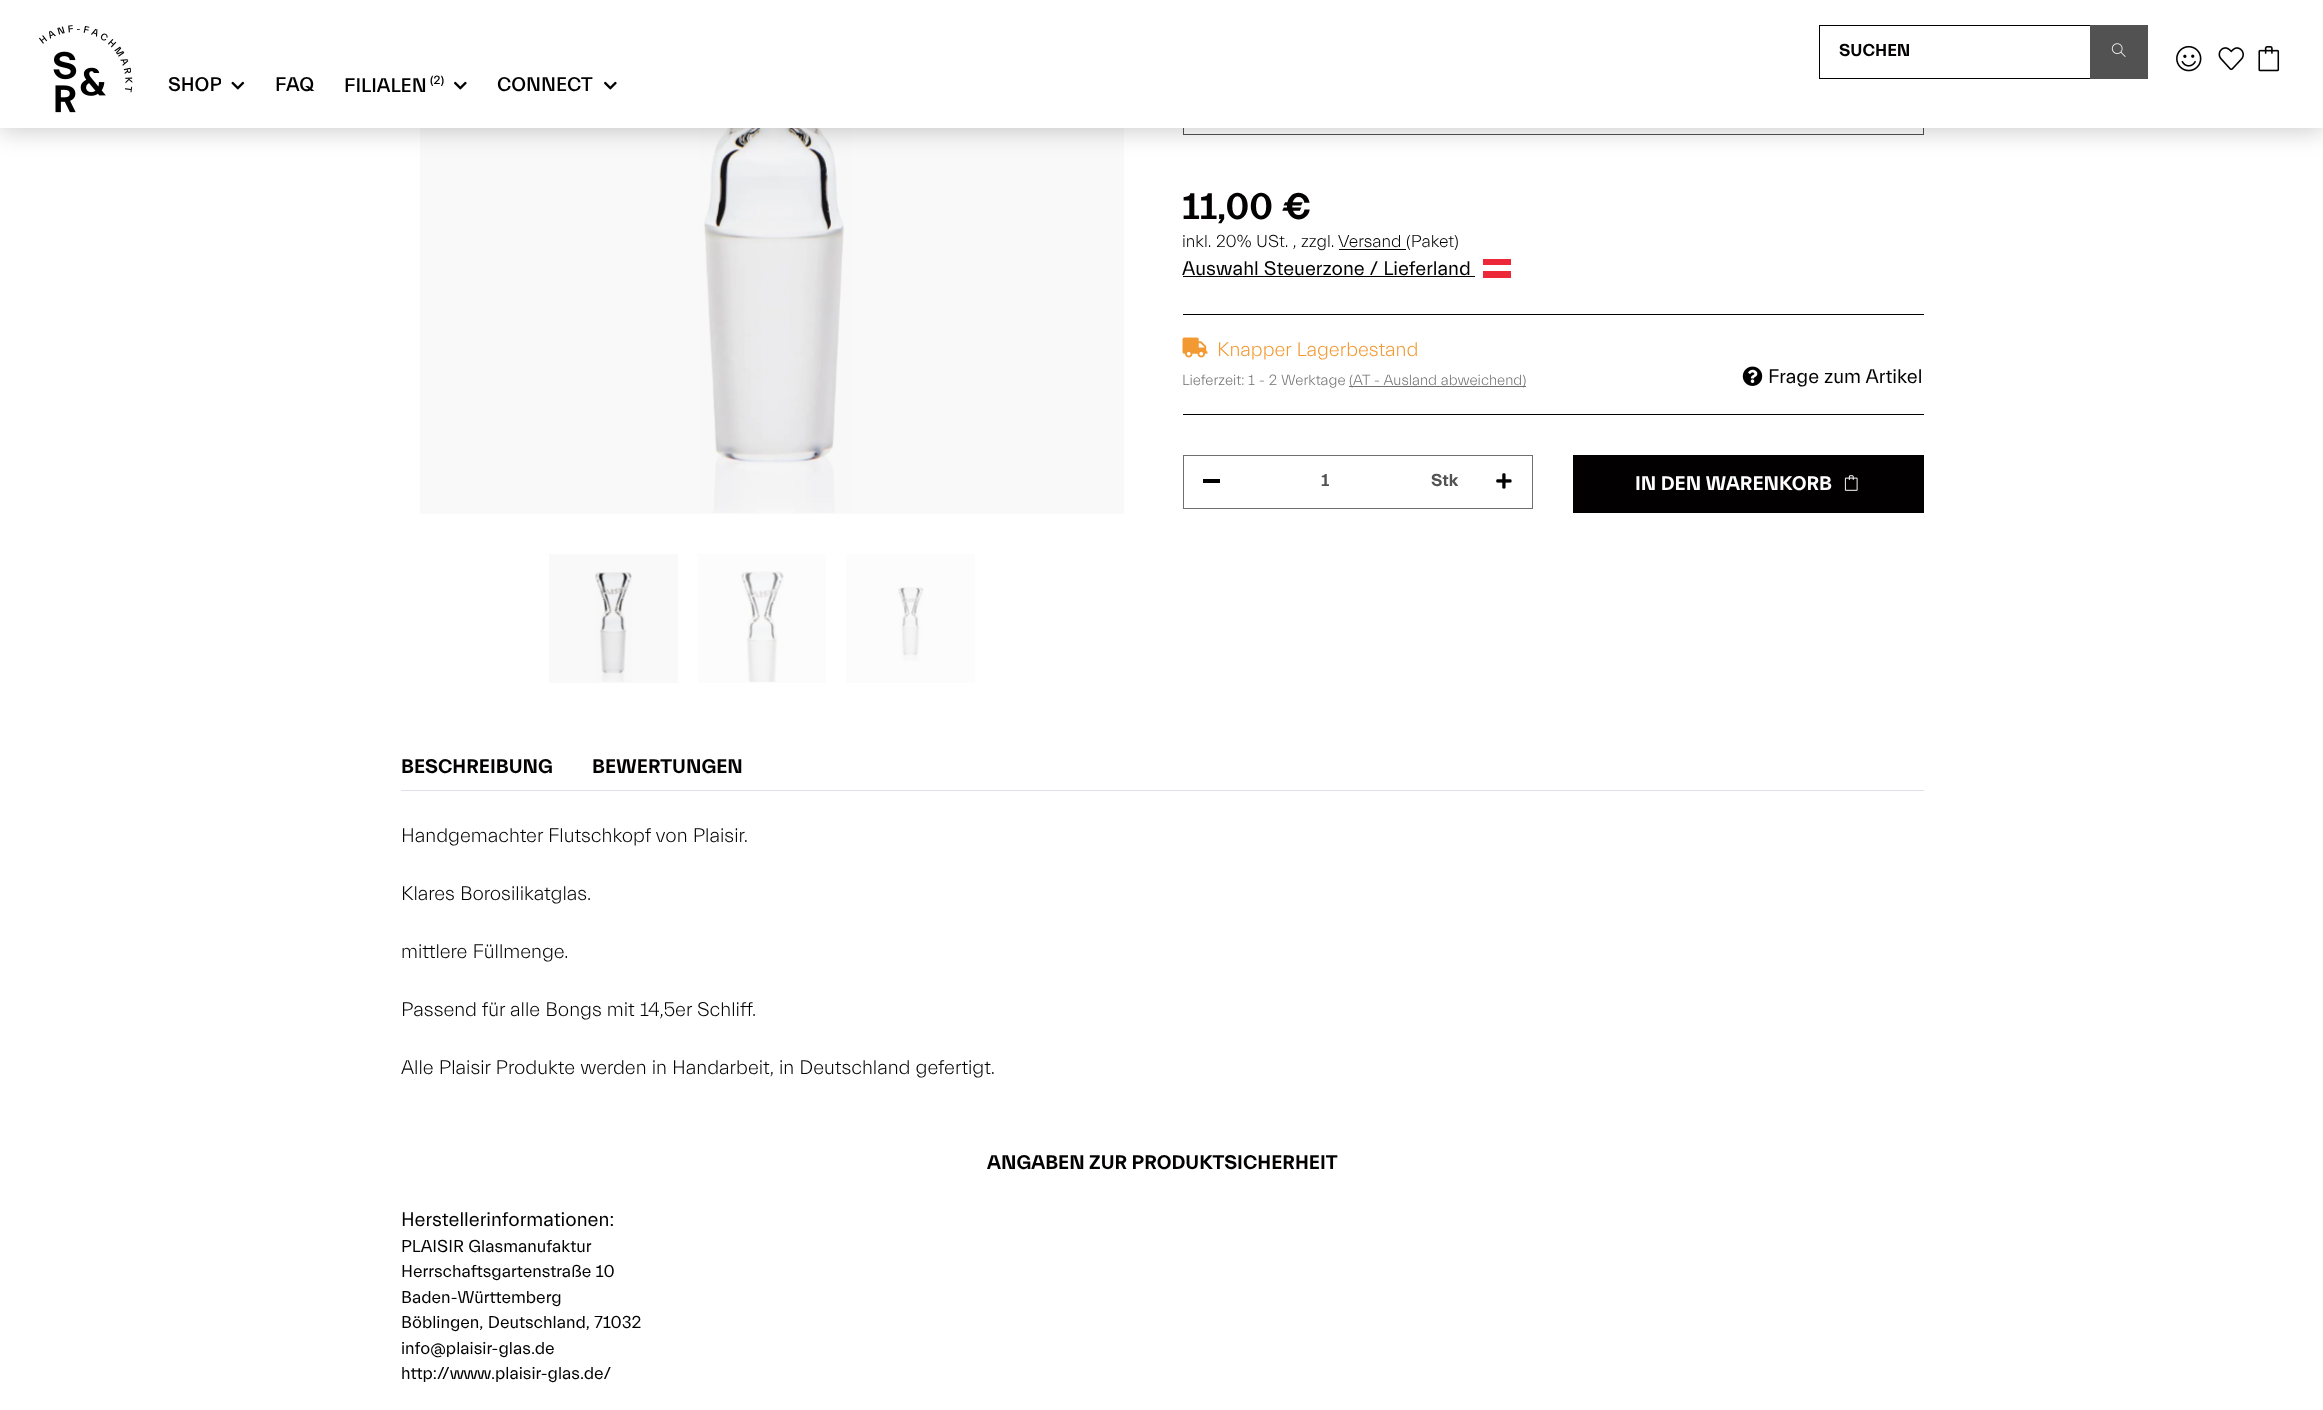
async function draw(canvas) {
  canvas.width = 2323;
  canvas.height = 1410;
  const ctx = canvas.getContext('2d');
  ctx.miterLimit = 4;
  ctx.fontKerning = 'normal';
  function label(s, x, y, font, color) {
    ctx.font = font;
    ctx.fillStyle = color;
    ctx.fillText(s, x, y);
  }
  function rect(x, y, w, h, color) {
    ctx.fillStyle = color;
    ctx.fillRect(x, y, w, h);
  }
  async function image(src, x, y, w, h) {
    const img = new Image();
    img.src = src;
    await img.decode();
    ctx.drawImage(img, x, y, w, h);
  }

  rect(0, 0, 2323, 1410, '#fff');
  rect(846, 554, 129, 129, '#fcfcfc');
  rect(698, 554, 128, 129, '#fcfcfc');
  rect(549, 554, 129, 129, '#f9f9f9');
  rect(420, 128, 704, 386, '#f9f9f9');
  await image('assets/img8.png', 699, 128, 153, 385);
  ctx.strokeStyle = '#525252';
  ctx.strokeRect(1183.5, 81.5, 740, 53);
  ctx.fillStyle = '#00000033';
  ctx.filter = 'blur(12.5px)';
  ctx.beginPath();
  ctx.rect(0, 4, 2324, 127);
  ctx.fill();
  ctx.filter = 'none';
  rect(0, 0, 2323, 128, '#fff');
  await image('assets/img1.png', 39, 25, 94, 88);
  rect(1819, 25, 272, 1, '#020000');
  rect(1819, 78, 272, 1, '#020000');
  rect(1819, 25, 1, 54, '#020000');
  label('SUCHEN', 1839, 56, 'bold 17.5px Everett', '#020000');
  rect(2090, 25, 58, 54, '#525252');
  await image('assets/img2.png', 2111, 43, 15, 14);
  await image('assets/img3.png', 2176, 45, 26, 27);
  await image('assets/img4.png', 2218, 47, 26, 24);
  await image('assets/img5.png', 2258, 46, 22, 26);
  ctx.save();
  ctx.beginPath();
  ctx.rect(168, 71, 53, 29);
  ctx.clip();
  label('SHOP', 168, 91, '500 20px Everett', '#020000');
  ctx.restore();
  await image('assets/img6.png', 231, 81, 14, 9);
  label('FAQ', 275, 91, '500 20px Everett', '#020000');
  label('FILIALEN', 344, 92, '500 20px Everett', '#020000');
  label('(2)', 430, 84, '500 12px Everett', '#020000');
  await image('assets/img7.png', 454, 81, 13, 9);
  label('CONNECT', 497, 91, '500 20px Everett', '#020000');
  await image('assets/img7.png', 604, 81, 13, 9);
  await image('assets/img9.png', 595, 572, 37, 110);
  await image('assets/img10.png', 741, 571, 43, 111);
  await image('assets/img11.png', 898, 587, 26, 74);
  label('11,00 €', 1182, 219, 'bold 37.5px Everett', '#020000');
  label('inkl. 20% USt. , zzgl.', 1182, 247, '300 17.5px Everett', '#020000');
  label('Versand', 1338, 247, '300 17.5px Everett', '#020000');
  label('(Paket)', 1406, 247, '300 17.5px Everett', '#020000');
  rect(1339, 249, 67, 1, '#000');
  label('Auswahl Steuerzone / Lieferland', 1182, 275, '20px Everett', '#020000');
  rect(1183, 276, 292, 1, '#000');
  rect(1483, 259, 28, 19, '#ed2939');
  rect(1483, 265, 28, 6, '#fff');
  rect(1183, 314, 741, 1, '#000');
  rect(1183, 414, 741, 1, '#000');
  await image('assets/img12.png', 1182, 337, 26, 21);
  label('Knapper Lagerbestand', 1217, 356, '300 20px Everett', '#f39932');
  label('Lieferzeit: 1 - 2 Werktage', 1182, 385, '300 15px Everett', '#707070');
  rect(1349, 386, 177, 1, '#707070');
  label('(AT - Ausland abweichend)', 1349, 385, '300 15px Everett', '#707070');
  await image('assets/img13.png', 1742, 366, 21, 20);
  label('Frage zum Artikel', 1768, 383, '20px Everett', '#020000');
  ctx.strokeStyle = '#707070';
  ctx.strokeRect(1183.5, 455.5, 349, 53);
  rect(1203, 479, 17, 4, '#000');
  label('1', 1321, 486, 'bold 17.5px Everett', '#525252');
  label('Stk', 1431, 486, 'bold 17.5px Everett', '#525252');
  await image('assets/img14.png', 1496, 473, 16, 16);
  rect(1573, 455, 351, 58, '#020000');
  label('IN DEN WARENKORB', 1635, 490, 'bold 20px Everett', '#fff');
  await image('assets/img15.png', 1844, 475, 14, 16);
  rect(401, 790, 1523, 1, '#dee2e6');
  label('BESCHREIBUNG', 401, 773, 'bold 20px Everett', '#020000');
  label('BEWERTUNGEN', 592, 773, 'bold 20px Everett', '#020000');
  label('Handgemachter Flutschkopf von Plaisir.', 401, 842, '300 20px Everett', '#020000');
  label('Klares Borosilikatglas.', 401, 900, '300 20px Everett', '#020000');
  label('mittlere Füllmenge.', 401, 958, '300 20px Everett', '#020000');
  label('Passend für alle Bongs mit 14,5er Schliff.', 401, 1016, '300 20px Everett', '#020000');
  label('Alle Plaisir Produkte werden in Handarbeit, in Deutschland gefertigt.', 401, 1074, '300 20px Everett', '#020000');
  label('ANGABEN ZUR PRODUKTSICHERHEIT', 987, 1169, 'bold 20px Everett', '#020000');
  label('Herstellerinformationen:', 401, 1226, '20px Everett', '#020000');
  label('PLAISIR Glasmanufaktur', 401, 1252, '17.5px Everett', '#020000');
  label('Herrschaftsgartenstraße 10', 401, 1277, '17.5px Everett', '#020000');
  label('Baden-Württemberg', 401, 1303, '17.5px Everett', '#020000');
  label('Böblingen, Deutschland, 71032', 401, 1328, '17.5px Everett', '#020000');
  label('info@plaisir-glas.de', 401, 1354, '17.5px Everett', '#020000');
  label('http://www.plaisir-glas.de/', 401, 1379, '17.5px Everett', '#020000');
}

draw(document.querySelector('canvas'));
